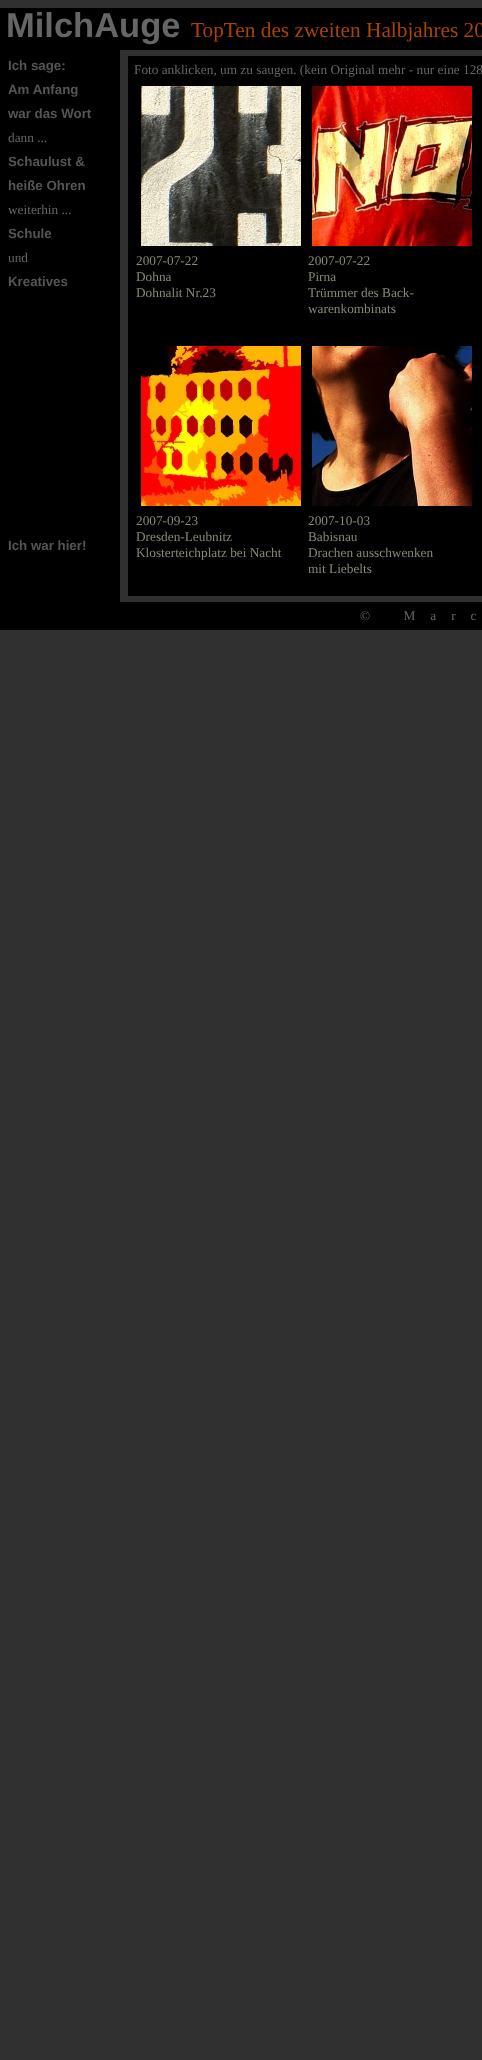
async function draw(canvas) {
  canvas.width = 482;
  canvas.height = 2060;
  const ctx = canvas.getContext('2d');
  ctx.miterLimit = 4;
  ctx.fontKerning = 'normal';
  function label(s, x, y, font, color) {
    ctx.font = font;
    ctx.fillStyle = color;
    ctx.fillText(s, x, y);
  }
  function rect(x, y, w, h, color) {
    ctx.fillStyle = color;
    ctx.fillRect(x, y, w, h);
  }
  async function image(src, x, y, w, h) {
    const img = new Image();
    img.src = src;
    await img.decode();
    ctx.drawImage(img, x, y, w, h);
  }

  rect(0, 0, 482, 2060, '#303030');
  rect(0, 8, 482, 42, '#000');
  label('MilchAuge', 6, 37, 'bold 34.5px Liberation Sans', '#666');
  label('TopTen des zweiten Halbjahres 20', 191, 37, '21.3px Liberation Serif', '#a40');
  rect(0, 50, 120, 552, '#000');
  label('Ich sage:', 8, 70, 'bold 13.3px Liberation Sans', '#555');
  label('Am Anfang', 8, 94, 'bold 13.3px Liberation Sans', '#555');
  label('war das Wort', 8, 118, 'bold 13.3px Liberation Sans', '#555');
  label('dann ...', 8, 142, '13.3px Liberation Serif', '#666');
  label('Schaulust &', 8, 166, 'bold 13.3px Liberation Sans', '#555');
  label('heiße Ohren', 8, 190, 'bold 13.3px Liberation Sans', '#555');
  label('weiterhin ...', 8, 214, '13.3px Liberation Serif', '#666');
  label('Schule', 8, 238, 'bold 13.3px Liberation Sans', '#555');
  label('und', 8, 262, '13.3px Liberation Serif', '#666');
  label('Kreatives', 8, 286, 'bold 13.3px Liberation Sans', '#555');
  label('Ich war hier!', 8, 550, 'bold 13.3px Liberation Sans', '#555');
  rect(128, 56, 354, 540, '#000');
  label('Foto anklicken, um zu saugen. (kein Original mehr - nur eine 128', 134, 74, '13.3px Liberation Serif', '#666');
  await image('assets/img1.png', 141, 86, 160, 160);
  await image('assets/img2.png', 312, 86, 160, 160);
  label('2007-07-22', 136, 265, '13.3px Liberation Serif', '#887');
  label('Dohna', 136, 281, '13.3px Liberation Serif', '#887');
  label('Dohnalit Nr.23', 136, 297, '13.3px Liberation Serif', '#887');
  label('2007-07-22', 308, 265, '13.3px Liberation Serif', '#887');
  label('Pirna', 308, 281, '13.3px Liberation Serif', '#887');
  label('Trümmer des Back-', 308, 297, '13.3px Liberation Serif', '#887');
  label('warenkombinats', 308, 313, '13.3px Liberation Serif', '#887');
  await image('assets/img3.png', 141, 346, 160, 160);
  await image('assets/img4.png', 312, 346, 160, 160);
  label('2007-09-23', 136, 525, '13.3px Liberation Serif', '#887');
  label('Dresden-Leubnitz', 136, 541, '13.3px Liberation Serif', '#887');
  label('Klosterteichplatz bei Nacht', 136, 557, '13.3px Liberation Serif', '#887');
  label('2007-10-03', 308, 525, '13.3px Liberation Serif', '#887');
  label('Babisnau', 308, 541, '13.3px Liberation Serif', '#887');
  label('Drachen ausschwenken', 308, 557, '13.3px Liberation Serif', '#887');
  label('mit Liebelts', 308, 573, '13.3px Liberation Serif', '#887');
  rect(0, 602, 482, 28, '#000');
  ctx.letterSpacing = '15px';
  label('© Marc', 360, 620, '13.3px Liberation Serif', '#666');
}

draw(document.querySelector('canvas'));
